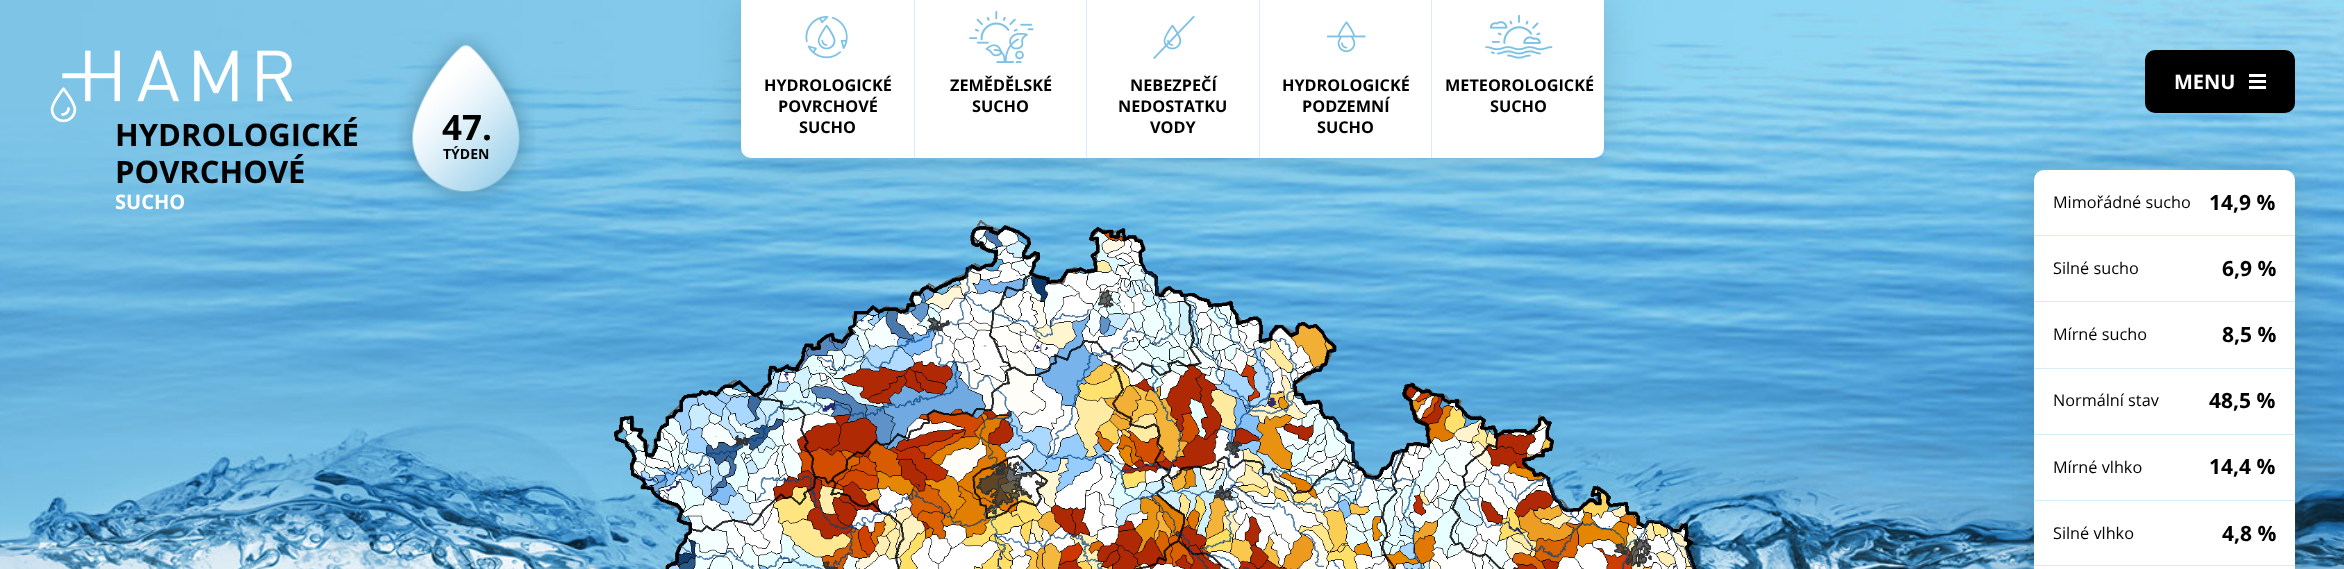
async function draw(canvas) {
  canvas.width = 2344;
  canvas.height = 569;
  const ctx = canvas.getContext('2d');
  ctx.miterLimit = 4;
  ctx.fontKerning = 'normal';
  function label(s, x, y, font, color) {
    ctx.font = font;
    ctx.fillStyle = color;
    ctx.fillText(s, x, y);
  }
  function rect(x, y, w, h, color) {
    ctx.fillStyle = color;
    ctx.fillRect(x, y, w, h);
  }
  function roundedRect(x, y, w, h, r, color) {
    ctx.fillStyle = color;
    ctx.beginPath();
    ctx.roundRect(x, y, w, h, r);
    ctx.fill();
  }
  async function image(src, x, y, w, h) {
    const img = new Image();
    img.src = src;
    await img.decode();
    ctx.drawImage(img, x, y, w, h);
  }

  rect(0, 0, 2344, 569, '#fff');
  await image('assets/img2.png', 0, 0, 2344, 569);
  label('HYDROLOGICKÉ', 115, 146, 'bold 31px Open Sans', '#000');
  await image('assets/img1.png', 50, 50, 243, 73);
  ctx.fillStyle = '#3b75904d';
  ctx.filter = 'blur(19px)';
  ctx.beginPath();
  ctx.roundRect(2034, 170, 261, 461, 10);
  ctx.fill();
  ctx.filter = 'none';
  roundedRect(2145, 50, 150, 63, 10, '#000');
  label('MENU', 2174, 89, 'bold 20px Open Sans', '#fff');
  rect(2249, 74, 17, 3, '#fff');
  rect(2249, 80, 17, 3, '#fff');
  rect(2249, 86, 17, 3, '#fff');
  ctx.fillStyle = '#3b75904d';
  ctx.filter = 'blur(19px)';
  ctx.beginPath();
  ctx.roundRect(741, 0, 863, 158, 10);
  ctx.fill();
  ctx.filter = 'none';
  ctx.fillStyle = '#fff';
  ctx.beginPath();
  ctx.roundRect(741, 0, 863, 158, [0, 0, 10, 10]);
  ctx.fill();
  await image('assets/img3.png', 805, 16, 43, 43);
  label('HYDROLOGICKÉ', 764, 91, 'bold 16.25px Open Sans', '#000');
  label('POVRCHOVÉ', 778, 112, 'bold 16.25px Open Sans', '#000');
  label('SUCHO', 799, 133, 'bold 16.25px Open Sans', '#000');
  rect(914, 0, 1, 158, '#d8edf7');
  await image('assets/img4.png', 969, 11, 65, 52);
  label('ZEMĚDĚLSKÉ', 950, 91, 'bold 16.25px Open Sans', '#000');
  label('SUCHO', 972, 112, 'bold 16.25px Open Sans', '#000');
  rect(1086, 0, 1, 158, '#d8edf7');
  await image('assets/img5.png', 1153, 15, 42, 44);
  label('NEBEZPEČÍ', 1130, 91, 'bold 16.25px Open Sans', '#000');
  label('NEDOSTATKU', 1118, 112, 'bold 16.25px Open Sans', '#000');
  label('VODY', 1150, 133, 'bold 16.25px Open Sans', '#000');
  rect(1259, 0, 1, 158, '#d8edf7');
  await image('assets/img6.png', 1326, 21, 40, 32);
  label('HYDROLOGICKÉ', 1282, 91, 'bold 16.25px Open Sans', '#000');
  label('PODZEMNÍ', 1302, 112, 'bold 16.25px Open Sans', '#000');
  label('SUCHO', 1317, 133, 'bold 16.25px Open Sans', '#000');
  rect(1431, 0, 1, 158, '#d8edf7');
  await image('assets/img7.png', 1485, 14, 68, 45);
  label('METEOROLOGICKÉ', 1445, 91, 'bold 16.25px Open Sans', '#000');
  label('SUCHO', 1490, 112, 'bold 16.25px Open Sans', '#000');
  label('POVRCHOVÉ', 115, 183, 'bold 31px Open Sans', '#000');
  label('SUCHO', 115, 209, 'bold 20px Open Sans', '#fff');
  await image('assets/img8.png', 397, 32, 138, 174);
  label('47.', 442, 140, 'bold 35px Open Sans', '#000');
  label('TÝDEN', 443, 159, 'bold 14px Open Sans', '#000');
  await image('assets/img9.png', 614, 220, 1083, 349);
  roundedRect(2034, 170, 261, 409, 10, '#fff');
  label('Mimořádné sucho', 2053, 208, '16.25px Open Sans', '#000');
  label('14,9 %', 2209, 210, 'bold 21px Open Sans', '#000');
  rect(2034, 235, 262, 1, '#7cc2e54d');
  label('Silné sucho', 2053, 274, '16.25px Open Sans', '#000');
  label('6,9 %', 2222, 276, 'bold 21px Open Sans', '#000');
  rect(2034, 301, 262, 1, '#7cc2e54d');
  label('Mírné sucho', 2053, 340, '16.25px Open Sans', '#000');
  label('8,5 %', 2222, 342, 'bold 21px Open Sans', '#000');
  rect(2034, 368, 262, 1, '#7cc2e54d');
  label('Normální stav', 2053, 406, '16.25px Open Sans', '#000');
  label('48,5 %', 2209, 408, 'bold 21px Open Sans', '#000');
  rect(2034, 434, 262, 1, '#7cc2e54d');
  label('Mírné vlhko', 2053, 473, '16.25px Open Sans', '#000');
  label('14,4 %', 2209, 474, 'bold 21px Open Sans', '#000');
  rect(2034, 500, 262, 1, '#7cc2e54d');
  label('Silné vlhko', 2053, 539, '16.25px Open Sans', '#000');
  label('4,8 %', 2222, 541, 'bold 21px Open Sans', '#000');
  rect(2034, 565, 262, 1, '#7cc2e54d');
}

draw(document.querySelector('canvas'));
